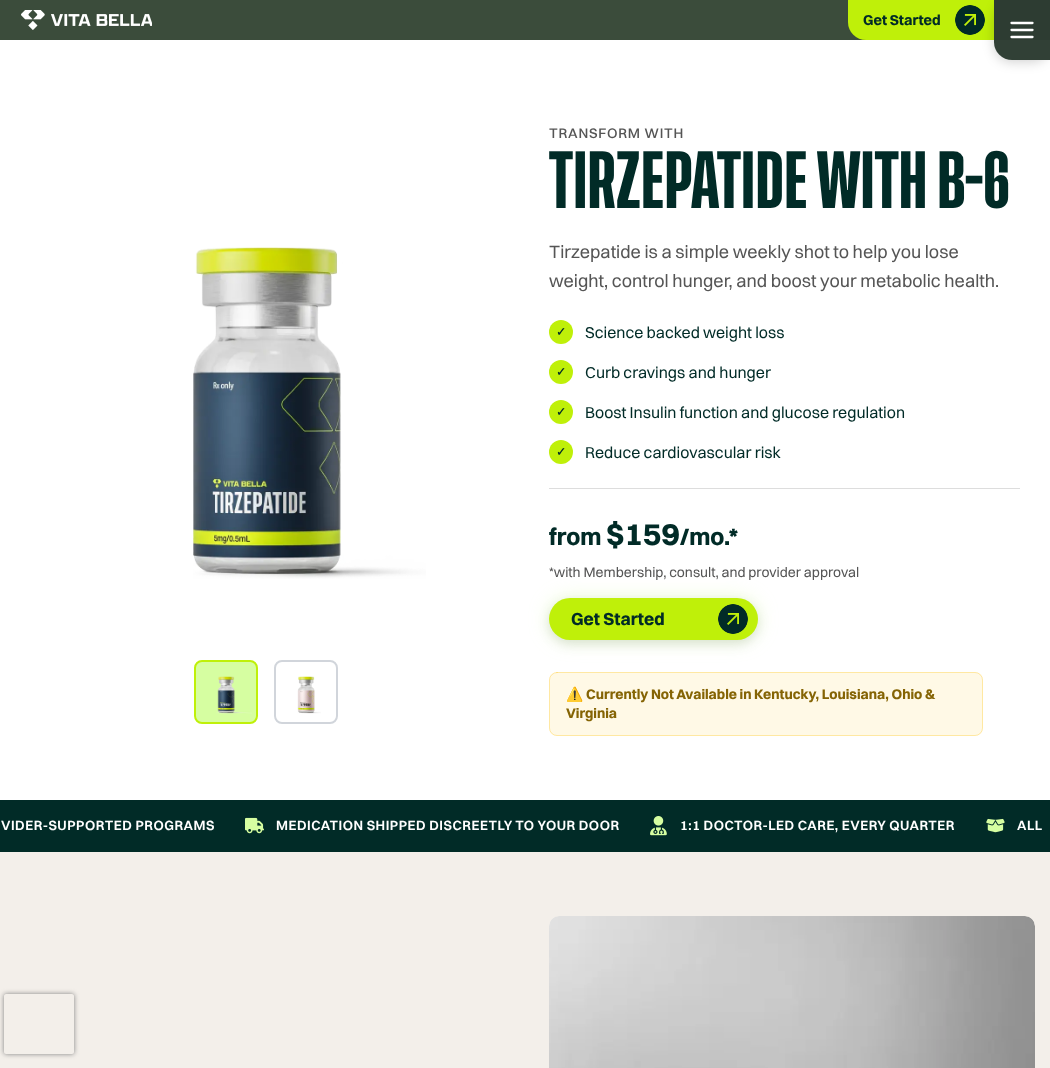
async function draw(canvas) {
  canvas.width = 1050;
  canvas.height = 1068;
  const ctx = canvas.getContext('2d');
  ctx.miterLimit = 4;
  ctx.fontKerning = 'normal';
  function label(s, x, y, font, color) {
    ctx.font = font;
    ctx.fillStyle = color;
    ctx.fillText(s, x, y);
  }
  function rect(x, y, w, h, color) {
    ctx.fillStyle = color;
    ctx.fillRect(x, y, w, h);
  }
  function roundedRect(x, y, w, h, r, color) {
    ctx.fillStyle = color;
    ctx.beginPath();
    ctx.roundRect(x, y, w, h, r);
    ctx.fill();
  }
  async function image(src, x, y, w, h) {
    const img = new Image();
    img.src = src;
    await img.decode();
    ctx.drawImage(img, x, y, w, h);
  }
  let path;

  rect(0, 0, 1050, 1068, '#fff');
  rect(0, 0, 1050, 40, '#3b4c3b');
  await image('assets/img1.png', 21, 10, 131, 20);
  ctx.fillStyle = '#bff009';
  ctx.beginPath();
  ctx.roundRect(848, 0, 146, 40, [0, 0, 0, 18]);
  ctx.fill();
  label('Get Started', 863, 25, 'bold 14.5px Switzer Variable', '#012b27');
  await image('assets/img2.png', 955, 5, 30, 30);
  ctx.save();
  path = new Path2D('M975 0H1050V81H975ZM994 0H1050V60H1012C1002 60 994 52 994 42Z');
  ctx.clip(path, 'evenodd');
  ctx.fillStyle = '#0000002e';
  ctx.filter = 'blur(6px)';
  ctx.beginPath();
  ctx.roundRect(994, 2, 56, 60, 18);
  ctx.fill();
  ctx.filter = 'none';
  ctx.restore();
  ctx.fillStyle = '#2d3c32fa';
  ctx.beginPath();
  ctx.roundRect(994, 0, 56, 60, [0, 0, 0, 18]);
  ctx.fill();
  path = new Path2D('M1011.5 30H1032.5M1011.5 23H1032.5M1011.5 37H1032.5');
  ctx.strokeStyle = '#fff';
  ctx.lineWidth = 2.3;
  ctx.lineCap = 'round';
  ctx.lineJoin = 'round';
  ctx.stroke(path);
  await image('assets/img3.png', 193, 247, 233, 332);
  ctx.fillStyle = '#d6fea1';
  ctx.beginPath();
  ctx.roundRect(195, 661, 62, 62, 7);
  ctx.fill();
  ctx.strokeStyle = '#bff009';
  ctx.lineWidth = 2;
  ctx.lineJoin = 'miter';
  ctx.stroke();
  await image('assets/img4.png', 216, 676, 36, 38);
  ctx.beginPath();
  ctx.roundRect(275, 661, 62, 62, 7);
  ctx.strokeStyle = '#d1d5db';
  ctx.stroke();
  await image('assets/img5.png', 297, 676, 24, 38);
  ctx.letterSpacing = '0.75px';
  label('TRANSFORM WITH', 549, 138, '500 14px Switzer Variable', '#555');
  ctx.letterSpacing = '0px';
  label('TIRZEPATIDE WITH B-6', 549, 208, '600 60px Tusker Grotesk', '#012b27');
  label('Tirzepatide is a simple weekly shot to help you lose', 549, 258, '18px Switzer Variable', '#555');
  label('weight, control hunger, and boost your metabolic health.', 549, 287, '18px Switzer Variable', '#555');
  ctx.fillStyle = '#bff009';
  ctx.beginPath();
  ctx.arc(561, 332, 12, 0, 2 * Math.PI);
  ctx.fill();
  label('✓', 556, 336, 'bold 12px DejaVu Sans', '#012b27');
  label('Science backed weight loss', 585, 338, '16px Switzer Variable', '#012b27');
  ctx.fillStyle = '#bff009';
  ctx.beginPath();
  ctx.arc(561, 372, 12, 0, 2 * Math.PI);
  ctx.fill();
  label('✓', 556, 376, 'bold 12px DejaVu Sans', '#012b27');
  label('Curb cravings and hunger', 585, 378, '16px Switzer Variable', '#012b27');
  ctx.fillStyle = '#bff009';
  ctx.beginPath();
  ctx.arc(561, 412, 12, 0, 2 * Math.PI);
  ctx.fill();
  label('✓', 556, 416, 'bold 12px DejaVu Sans', '#012b27');
  label('Boost Insulin function and glucose regulation', 585, 418, '16px Switzer Variable', '#012b27');
  ctx.fillStyle = '#bff009';
  ctx.beginPath();
  ctx.arc(561, 452, 12, 0, 2 * Math.PI);
  ctx.fill();
  label('✓', 556, 456, 'bold 12px DejaVu Sans', '#012b27');
  label('Reduce cardiovascular risk', 585, 458, '16px Switzer Variable', '#012b27');
  rect(549, 488, 471, 1, '#ddd');
  label('from', 549, 545, 'bold 24px Switzer Variable', '#012b27');
  label('$159', 606, 545, 'bold 32px Switzer Variable', '#012b27');
  label('/mo.*', 680, 545, 'bold 24px Switzer Variable', '#012b27');
  label('*with Membership, consult, and provider approval', 549, 577, '14px Switzer Variable', '#555');
  ctx.fillStyle = '#d6fea166';
  ctx.filter = 'blur(10px)';
  ctx.beginPath();
  ctx.roundRect(549, 598, 209, 42, 21);
  ctx.fill();
  ctx.filter = 'none';
  ctx.fillStyle = '#2c3c3226';
  ctx.filter = 'blur(6px)';
  ctx.beginPath();
  ctx.roundRect(549, 602, 209, 42, 21);
  ctx.fill();
  ctx.filter = 'none';
  roundedRect(549, 598, 209, 42, 21, '#bff009');
  label('Get Started', 571, 625, 'bold 17.5px Switzer Variable', '#012b27');
  await image('assets/img2.png', 718, 604, 30, 30);
  roundedRect(549, 672, 434, 64, 8, '#fff9e6');
  ctx.beginPath();
  ctx.roundRect(549.5, 672.5, 433, 63, 7.5);
  ctx.strokeStyle = '#ffc1074d';
  ctx.lineWidth = 1;
  ctx.stroke();
  label('⚠️', 566, 699, 'bold 14px Noto Color Emoji', '#856404');
  label('Currently Not Available in Kentucky, Louisiana, Ohio &', 586, 699, 'bold 14px Switzer Variable', '#856404');
  label('Virginia', 566, 718, 'bold 14px Switzer Variable', '#856404');
  rect(0, 800, 1050, 52, '#012b27');
  ctx.letterSpacing = '0.5px';
  label('VIDER-SUPPORTED PROGRAMS', 1, 830, '600 13.6px Switzer Variable', '#fff');
  await image('assets/img6.png', 245, 817, 19, 17);
  label('MEDICATION SHIPPED DISCREETLY TO YOUR DOOR', 276, 830, '600 13.6px Switzer Variable', '#fff');
  await image('assets/img7.png', 650, 816, 17, 20);
  label('1:1 DOCTOR-LED CARE, EVERY QUARTER', 680, 830, '600 13.6px Switzer Variable', '#fff');
  await image('assets/img8.png', 986, 818, 19, 15);
  label('ALL', 1017, 830, '600 13.6px Switzer Variable', '#fff');
  rect(0, 852, 1050, 216, '#f3efea');
  await image('assets/img9.png', 549, 916, 486, 152);
  ctx.save();
  path = new Path2D('M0 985H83V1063H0ZM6 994H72C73 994 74 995 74 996V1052C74 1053 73 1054 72 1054H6C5 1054 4 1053 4 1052V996C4 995 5 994 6 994Z');
  ctx.clip(path, 'evenodd');
  ctx.fillStyle = '#808080';
  ctx.filter = 'blur(2.5px)';
  ctx.beginPath();
  ctx.roundRect(4, 994, 70, 60, 2);
  ctx.fill();
  ctx.filter = 'none';
  ctx.restore();
}

draw(document.querySelector('canvas'));
